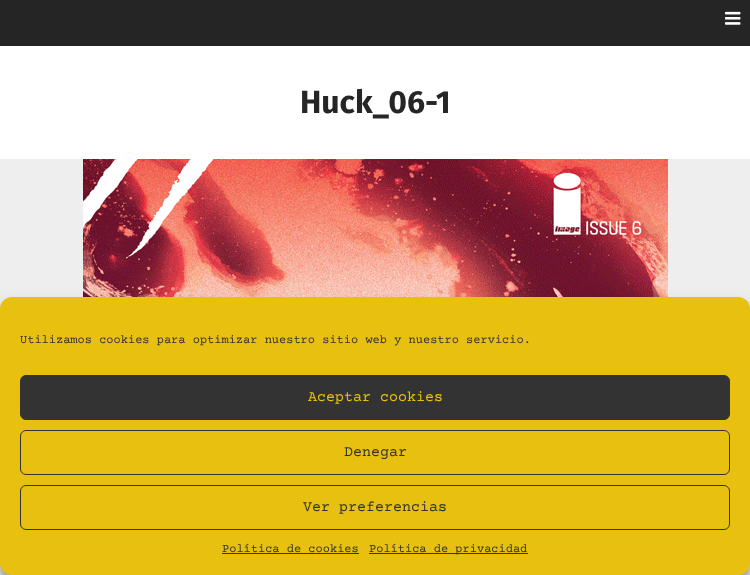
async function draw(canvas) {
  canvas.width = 750;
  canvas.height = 575;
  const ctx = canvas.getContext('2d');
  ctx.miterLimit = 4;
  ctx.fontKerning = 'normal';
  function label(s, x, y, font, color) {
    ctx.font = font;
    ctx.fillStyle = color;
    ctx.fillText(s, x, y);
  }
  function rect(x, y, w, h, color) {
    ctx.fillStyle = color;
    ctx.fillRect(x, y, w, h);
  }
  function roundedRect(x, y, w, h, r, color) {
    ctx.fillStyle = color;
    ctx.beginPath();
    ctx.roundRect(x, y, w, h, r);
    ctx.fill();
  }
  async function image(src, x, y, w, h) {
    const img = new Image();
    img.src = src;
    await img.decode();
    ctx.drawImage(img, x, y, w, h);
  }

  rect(0, 0, 750, 575, '#fff');
  rect(0, 0, 750, 46, '#252525');
  await image('assets/img1.png', 725, 11, 16, 14);
  label('Huck_06-1', 300, 113, 'bold 32px Fira Sans', '#262626');
  rect(0, 159, 750, 416, '#eee');
  await image('assets/img2.png', 83, 159, 585, 138);
  ctx.fillStyle = '#0000003b';
  ctx.filter = 'blur(3px)';
  ctx.beginPath();
  ctx.roundRect(0, 303, 750, 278, 12);
  ctx.fill();
  ctx.filter = 'none';
  ctx.fillStyle = '#00000030';
  ctx.filter = 'blur(10px)';
  ctx.beginPath();
  ctx.roundRect(0, 307, 750, 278, 12);
  ctx.fill();
  ctx.filter = 'none';
  roundedRect(0, 297, 750, 278, 12, '#e8c010');
  label('Utilizamos cookies para optimizar nuestro sitio web y nuestro servicio.', 20, 343, '12px Courier Prime', '#333');
  ctx.beginPath();
  ctx.roundRect(20.5, 375.5, 709, 44, 5.5);
  ctx.fill();
  ctx.strokeStyle = '#333';
  ctx.stroke();
  label('Aceptar cookies', 308, 401, '15px Courier Prime', '#e8c010');
  ctx.beginPath();
  ctx.roundRect(20.5, 430.5, 709, 44, 5.5);
  ctx.stroke();
  label('Denegar', 344, 456, '15px Courier Prime', '#333');
  ctx.beginPath();
  ctx.roundRect(20.5, 485.5, 709, 44, 5.5);
  ctx.stroke();
  label('Ver preferencias', 303, 511, '15px Courier Prime', '#333');
  label('Política de cookies', 222, 552, '12px Courier Prime', '#333');
  rect(222, 553, 137, 1, '#333');
  rect(369, 553, 159, 1, '#333');
  label('Política de privacidad', 369, 552, '12px Courier Prime', '#333');
}

draw(document.querySelector('canvas'));
